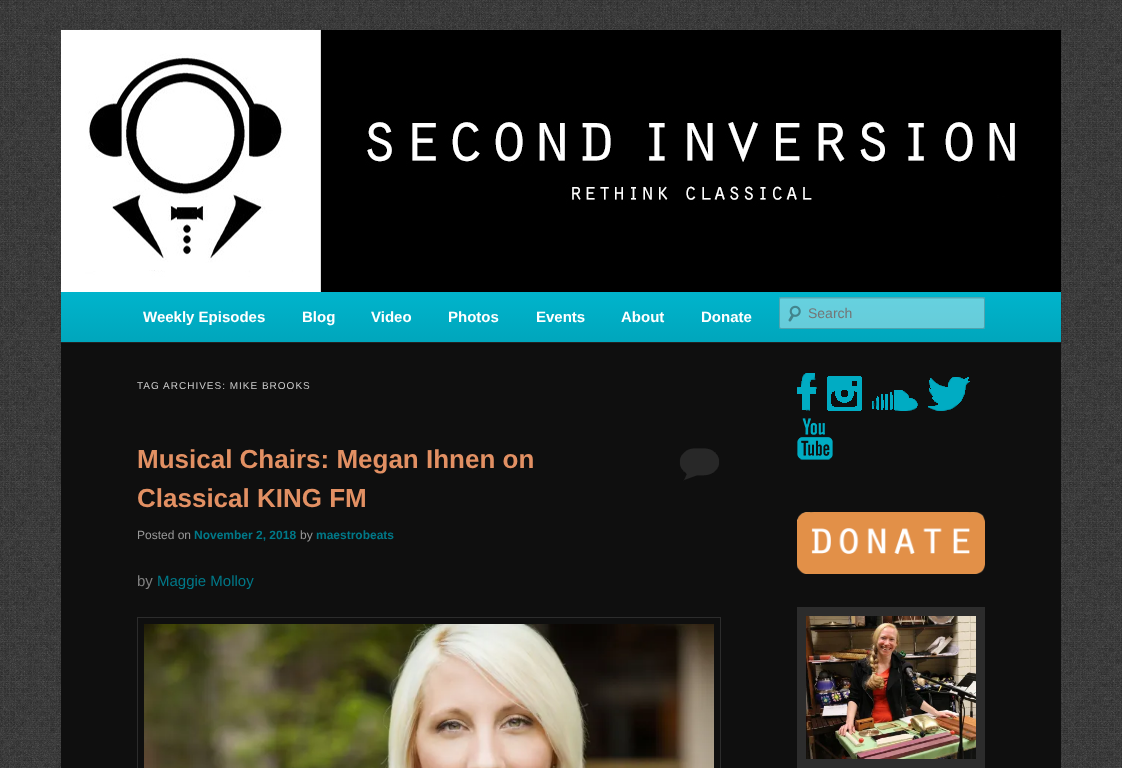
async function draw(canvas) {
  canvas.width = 1122;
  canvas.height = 768;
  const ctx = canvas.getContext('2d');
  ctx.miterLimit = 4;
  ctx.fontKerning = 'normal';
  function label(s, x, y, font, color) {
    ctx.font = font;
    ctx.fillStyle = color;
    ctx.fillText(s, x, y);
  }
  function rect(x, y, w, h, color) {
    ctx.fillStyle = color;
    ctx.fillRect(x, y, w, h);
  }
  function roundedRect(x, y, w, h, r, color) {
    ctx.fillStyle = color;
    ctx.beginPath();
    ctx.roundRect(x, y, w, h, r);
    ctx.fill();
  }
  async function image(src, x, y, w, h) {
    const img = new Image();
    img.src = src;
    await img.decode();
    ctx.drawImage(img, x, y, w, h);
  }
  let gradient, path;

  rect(0, 0, 1122, 768, '#fff');
  await image('assets/img1.png', 0, 0, 1122, 768);
  rect(61, 343, 1000, 425, '#0f0f0f');
  ctx.fillStyle = '#00000033';
  ctx.filter = 'blur(1px)';
  ctx.beginPath();
  ctx.rect(61, 293, 1000, 51);
  ctx.fill();
  ctx.filter = 'none';
  await image('assets/img2.png', 61, 30, 1000, 262);
  gradient = ctx.createLinearGradient(561, 292, 561, 342);
  gradient.addColorStop(0, '#00b4cc');
  gradient.addColorStop(1, '#00a6bc');
  ctx.fillStyle = gradient;
  ctx.fillRect(61, 292, 1000, 50);
  rect(61, 342, 1000, 1, '#222');
  label('Weekly Episodes', 143, 322, 'bold 15px Liberation Sans', '#fff');
  label('Blog', 302, 322, 'bold 15px Liberation Sans', '#fff');
  label('Video', 371, 322, 'bold 15px Liberation Sans', '#fff');
  label('Photos', 448, 322, 'bold 15px Liberation Sans', '#fff');
  label('Events', 536, 322, 'bold 15px Liberation Sans', '#fff');
  label('About', 621, 322, 'bold 15px Liberation Sans', '#fff');
  label('Donate', 701, 322, 'bold 15px Liberation Sans', '#fff');
  roundedRect(779, 297, 206, 32, 2, '#ffffff66');
  await image('assets/img3.png', 788, 305, 13, 17);
  ctx.fillStyle = '#5cbcc9';
  path = new Path2D('M781 299H984V300V298H983H781C780 298 780 299 780 300C780 299 780 299 781 299Z');
  ctx.fill(path);
  ctx.beginPath();
  ctx.roundRect(779.5, 297.5, 205, 31, 1.5);
  ctx.strokeStyle = '#00000033';
  ctx.stroke();
  label('Search', 808, 318, '14px Liberation Sans', '#757575');
  ctx.letterSpacing = '1px';
  label('TAG ARCHIVES: MIKE BROOKS', 137, 389, '10px Liberation Sans', '#ccc');
  ctx.letterSpacing = '0px';
  label('Musical Chairs: Megan Ihnen on', 137, 468, 'bold 26px Liberation Sans', '#e29063');
  label('Classical KING FM', 137, 507, 'bold 26px Liberation Sans', '#e29063');
  rect(679, 447, 41, 34, '#282828');
  await image('assets/img4.png', 678, 445, 43, 36);
  label('Posted on', 137, 539, '12px Liberation Sans', '#999');
  label('November 2, 2018', 194, 539, 'bold 12px Liberation Sans', '#007989');
  label('by', 300, 539, '12px Liberation Sans', '#999');
  label('maestrobeats', 316, 539, 'bold 12px Liberation Sans', '#007989');
  label('by', 137, 586, '15px Liberation Sans', '#808080');
  label('Maggie Molloy', 157, 586, '15px Liberation Sans', '#007989');
  ctx.strokeStyle = '#2c2c2c';
  ctx.strokeRect(137.5, 617.5, 583, 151);
  await image('assets/img5.png', 144, 624, 570, 144);
  await image('assets/img6.png', 797, 373, 20, 38);
  await image('assets/img7.png', 827, 376, 35, 35);
  await image('assets/img8.png', 872, 390, 46, 21);
  await image('assets/img9.png', 928, 377, 42, 34);
  await image('assets/img10.png', 797, 418, 36, 42);
  await image('assets/img11.png', 797, 512, 188, 62);
  rect(797, 607, 188, 161, '#2c2c2c');
  await image('assets/img12.png', 806, 616, 170, 143);
}

draw(document.querySelector('canvas'));
